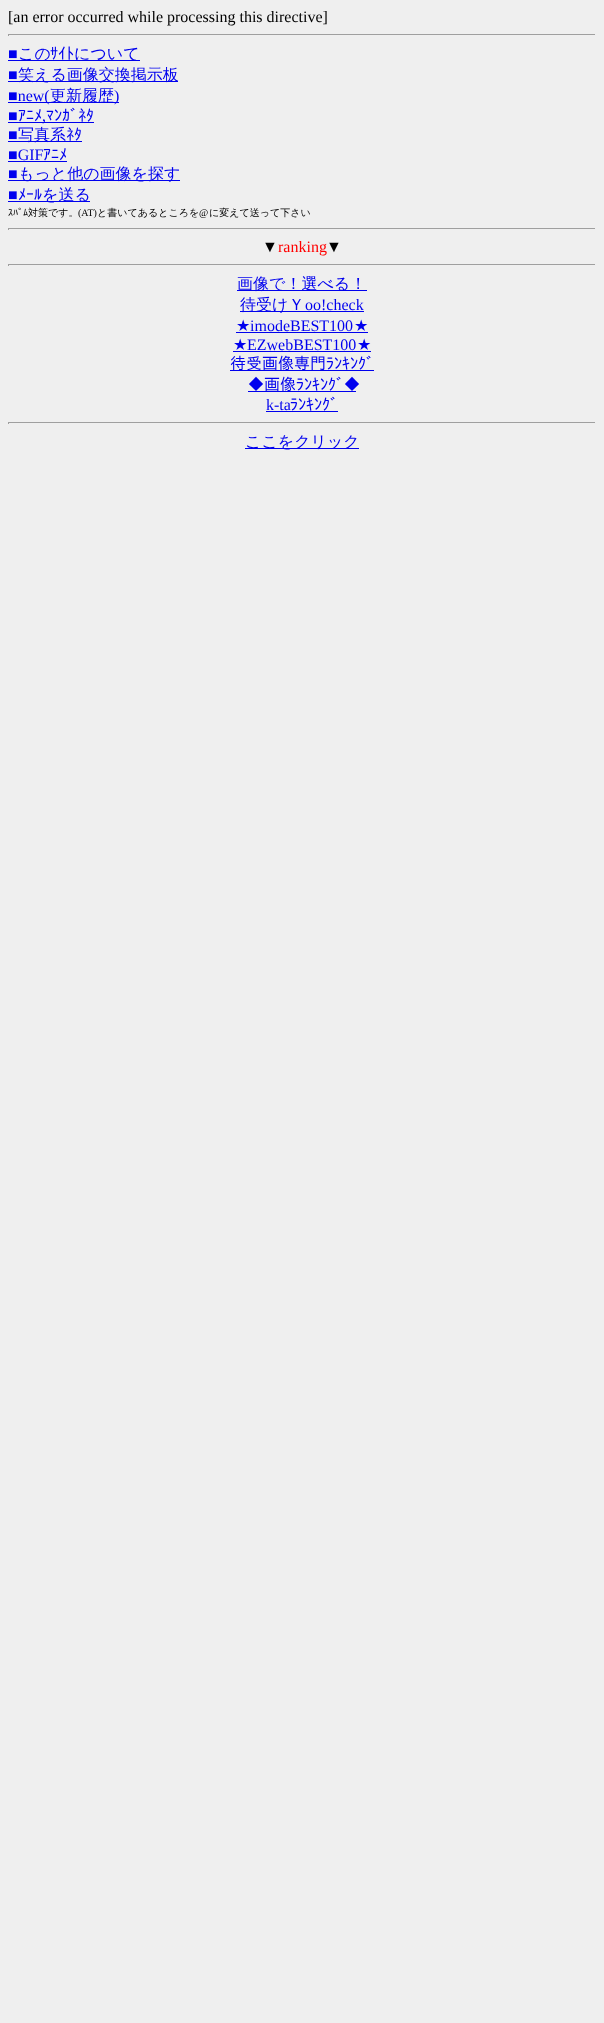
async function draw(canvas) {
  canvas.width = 604;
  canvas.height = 2023;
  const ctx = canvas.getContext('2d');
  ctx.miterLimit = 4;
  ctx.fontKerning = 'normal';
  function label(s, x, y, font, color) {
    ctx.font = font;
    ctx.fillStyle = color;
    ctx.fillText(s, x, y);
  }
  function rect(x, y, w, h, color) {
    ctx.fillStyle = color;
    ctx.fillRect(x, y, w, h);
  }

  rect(0, 0, 604, 2023, '#efefef');
  label('[an error occurred while processing this directive]', 8, 22, '16px Liberation Serif', '#000');
  rect(8, 34, 588, 1, '#9f9f9f');
  rect(595, 34, 1, 2, '#eee');
  rect(8, 34, 1, 2, '#9f9f9f');
  label('■', 8, 59, '16px Liberation Serif', '#00e');
  rect(8, 60, 132, 1, '#00e');
  label('この', 18, 59, '500 16px WenQuanYi Zen Hei', '#00e');
  label('ｻｲﾄ', 50, 59, '16px IPAGothic', '#00e');
  label('について', 74, 59, '500 16px WenQuanYi Zen Hei', '#00e');
  label('■', 8, 80, '16px Liberation Serif', '#00e');
  rect(8, 81, 170, 1, '#00e');
  label('笑える画像交換掲示板', 18, 80, '500 16px WenQuanYi Zen Hei', '#00e');
  rect(8, 102, 111, 1, '#00e');
  label('■new(', 8, 101, '16px Liberation Serif', '#00e');
  label('更新履歴', 50, 101, '500 16px WenQuanYi Zen Hei', '#00e');
  label(')', 114, 101, '16px Liberation Serif', '#00e');
  label('■', 8, 121, '16px Liberation Serif', '#00e');
  label('ｱﾆﾒ', 18, 121, '16px IPAGothic', '#00e');
  label('ﾏﾝｶﾞﾈﾀ', 46, 121, '16px IPAGothic', '#00e');
  rect(8, 122, 86, 1, '#00e');
  label(',', 42, 121, '16px Liberation Serif', '#00e');
  label('■', 8, 140, '16px Liberation Serif', '#00e');
  rect(8, 141, 74, 1, '#00e');
  label('写真系', 18, 140, '500 16px WenQuanYi Zen Hei', '#00e');
  label('ﾈﾀ', 66, 140, '16px IPAGothic', '#00e');
  label('■GIF', 8, 160, '16px Liberation Serif', '#00e');
  rect(8, 161, 59, 1, '#00e');
  label('ｱﾆﾒ', 43, 160, '16px IPAGothic', '#00e');
  label('■', 8, 179, '16px Liberation Serif', '#00e');
  rect(8, 180, 172, 1, '#00e');
  label('もっと他の画像を探す', 18, 179, '500 16px WenQuanYi Zen Hei', '#00e');
  label('■', 8, 200, '16px Liberation Serif', '#00e');
  rect(8, 201, 82, 1, '#00e');
  label('ﾒｰﾙ', 18, 200, '16px IPAGothic', '#00e');
  label('を送る', 42, 200, '500 16px WenQuanYi Zen Hei', '#00e');
  label('ｽﾊﾟﾑ', 8, 216, '10px IPAGothic', '#000');
  label('対策です。', 28, 216, '500 10px WenQuanYi Zen Hei', '#000');
  label('(AT)', 78, 216, '10px Liberation Serif', '#000');
  label('と書いてあるところを', 97, 216, '500 10px WenQuanYi Zen Hei', '#000');
  label('@', 199, 216, '10px Liberation Serif', '#000');
  label('に変えて送って下さい', 209, 216, '500 10px WenQuanYi Zen Hei', '#000');
  rect(8, 228, 588, 1, '#9f9f9f');
  rect(595, 228, 1, 2, '#eee');
  rect(8, 228, 1, 2, '#9f9f9f');
  label('▼', 262, 252, '16px Liberation Serif', '#000');
  label('ranking', 278, 252, '16px Liberation Serif', '#f00');
  label('▼', 326, 252, '16px Liberation Serif', '#000');
  rect(8, 264, 588, 1, '#9f9f9f');
  rect(595, 264, 1, 2, '#eee');
  rect(8, 264, 1, 2, '#9f9f9f');
  rect(237, 290, 130, 1, '#00e');
  label('画像で！選べる！', 237, 289, '500 16px WenQuanYi Zen Hei', '#00e');
  rect(240, 311, 124, 1, '#00e');
  label('待受けＹ', 240, 310, '500 16px WenQuanYi Zen Hei', '#00e');
  label('oo!check', 305, 310, '16px Liberation Serif', '#00e');
  label('★', 236, 331, '16px DejaVu Sans', '#00e');
  rect(236, 332, 132, 1, '#00e');
  label('imodeBEST100', 250, 331, '16px Liberation Serif', '#00e');
  label('★', 354, 331, '16px DejaVu Sans', '#00e');
  label('★', 233, 350, '16px DejaVu Sans', '#00e');
  rect(233, 351, 138, 1, '#00e');
  label('EZwebBEST100', 247, 350, '16px Liberation Serif', '#00e');
  label('★', 357, 350, '16px DejaVu Sans', '#00e');
  rect(230, 370, 144, 1, '#00e');
  label('待受画像専門ﾗﾝｷﾝｸﾞ', 230, 369, '16px IPAGothic', '#00e');
  rect(248, 391, 108, 1, '#00e');
  label('◆画像ﾗﾝｷﾝｸﾞ◆', 248, 390, '16px IPAGothic', '#00e');
  label('k-ta', 266, 410, '16px Liberation Serif', '#00e');
  rect(266, 411, 72, 1, '#00e');
  label('ﾗﾝｷﾝｸﾞ', 290, 410, '16px IPAGothic', '#00e');
  rect(8, 422, 588, 1, '#9f9f9f');
  rect(595, 422, 1, 2, '#eee');
  rect(8, 422, 1, 2, '#9f9f9f');
  rect(245, 448, 114, 1, '#00e');
  label('ここをクリック', 245, 447, '500 16px WenQuanYi Zen Hei', '#00e');
}

draw(document.querySelector('canvas'));
